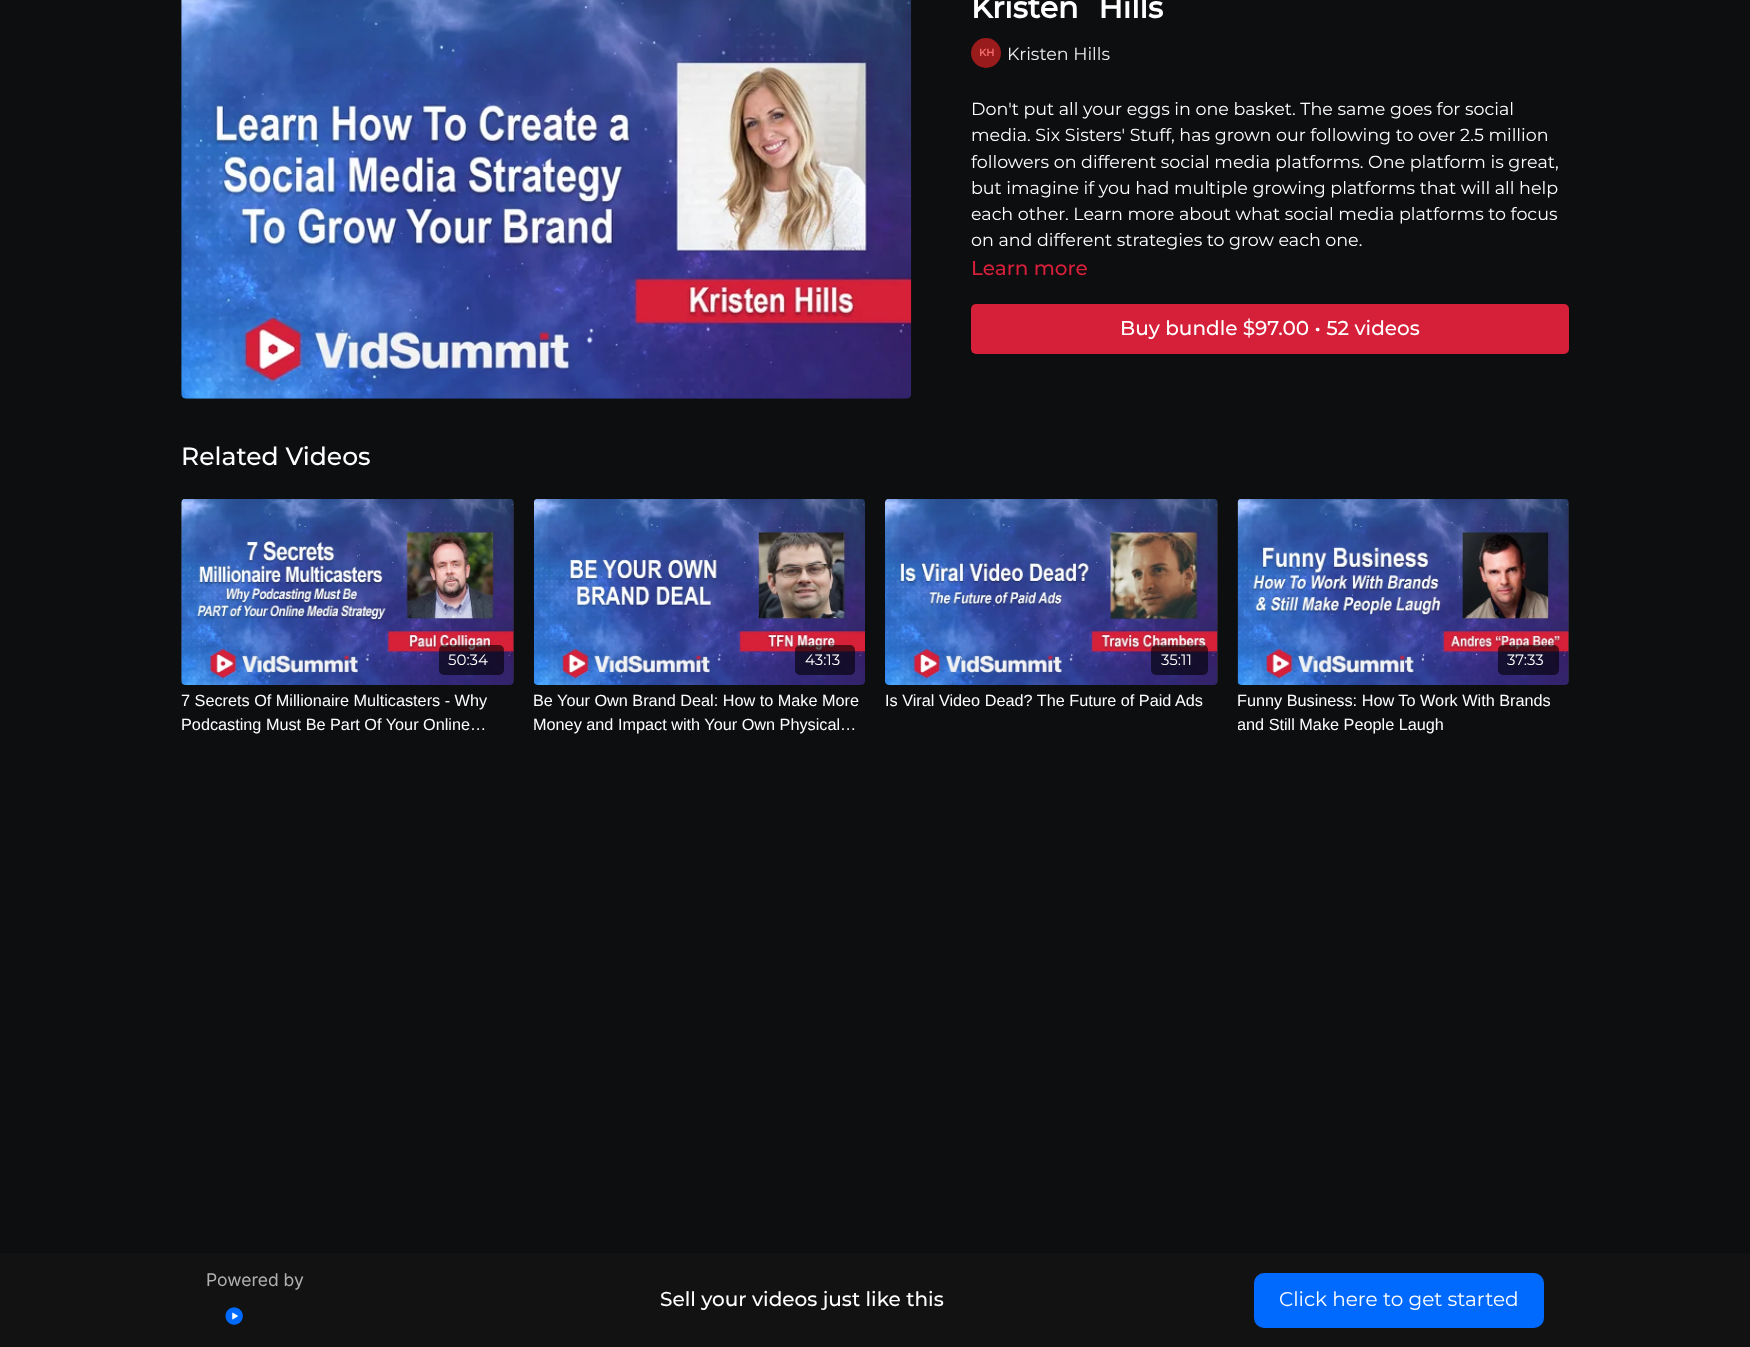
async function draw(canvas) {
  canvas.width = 1750;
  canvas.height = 1347;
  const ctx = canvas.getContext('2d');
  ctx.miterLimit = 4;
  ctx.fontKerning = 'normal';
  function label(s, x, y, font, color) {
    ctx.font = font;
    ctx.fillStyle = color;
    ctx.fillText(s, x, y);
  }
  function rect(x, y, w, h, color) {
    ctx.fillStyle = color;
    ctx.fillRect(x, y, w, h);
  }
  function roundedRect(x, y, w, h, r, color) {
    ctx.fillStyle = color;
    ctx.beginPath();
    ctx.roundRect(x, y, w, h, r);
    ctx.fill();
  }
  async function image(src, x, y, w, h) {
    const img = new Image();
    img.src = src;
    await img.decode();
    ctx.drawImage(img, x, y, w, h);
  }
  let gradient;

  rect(0, 0, 1750, 1347, '#0d0e10');
  await image('assets/img1.png', 181, 0, 731, 399);
  ctx.wordSpacing = '12px';
  label('Kristen Hills', 971, 18, 'bold 30px Montserrat', '#fff');
  ctx.fillStyle = '#991b1b';
  ctx.beginPath();
  ctx.arc(986, 53, 15, 0, 2 * Math.PI);
  ctx.fill();
  ctx.wordSpacing = '0px';
  label('KH', 979, 56, 'bold 10px Montserrat', '#f87171');
  label('Kristen Hills', 1007, 60, '17.5px Montserrat', '#eee');
  label('Don\'t put all your eggs in one basket. The same goes for social', 971, 115, '17.5px Montserrat', '#fff');
  label('media. Six Sisters\' Stuff, has grown our following to over 2.5 million', 971, 141, '17.5px Montserrat', '#fff');
  label('followers on different social media platforms. One platform is great,', 971, 168, '17.5px Montserrat', '#fff');
  label('but imagine if you had multiple growing platforms that will all help', 971, 194, '17.5px Montserrat', '#fff');
  label('each other. Learn more about what social media platforms to focus', 971, 220, '17.5px Montserrat', '#fff');
  label('on and different strategies to grow each one.', 971, 246, '17.5px Montserrat', '#fff');
  label('Learn more', 971, 275, '500 20px Montserrat', '#d61f39');
  roundedRect(971, 304, 598, 50, 5, '#d61f39');
  label('Buy bundle $97.00 • 52 videos', 1120, 335, '500 20px Montserrat', '#fff');
  label('Related Videos', 181, 465, '500 25px Montserrat', '#fff');
  gradient = ctx.createLinearGradient(181, 592, 514, 592);
  gradient.addColorStop(0.08, '#2c2d2f');
  gradient.addColorStop(0.18, '#2a2b2d');
  gradient.addColorStop(0.33, '#28292a');
  ctx.fillStyle = gradient;
  ctx.beginPath();
  ctx.roundRect(181, 499, 333, 186, 5);
  ctx.fill();
  await image('assets/img2.png', 181, 499, 333, 186);
  roundedRect(439, 645, 65, 30, 5, '#00000099');
  label('50:34', 448, 665, '15px Montserrat', '#fff');
  label('7 Secrets Of Millionaire Multicasters - Why', 181, 706, '16.25px Liberation Sans', '#fff');
  label('Podcasting Must Be Part Of Your Online…', 181, 730, '16.25px Liberation Sans', '#fff');
  await image('assets/img3.png', 534, 499, 331, 186);
  roundedRect(795, 645, 60, 30, 5, '#00000099');
  label('43:13', 805, 665, '15px Montserrat', '#fff');
  label('Be Your Own Brand Deal: How to Make More', 533, 706, '16.25px Liberation Sans', '#fff');
  label('Money and Impact with Your Own Physical…', 533, 730, '16.25px Liberation Sans', '#fff');
  gradient = ctx.createLinearGradient(885, 592, 1218, 592);
  gradient.addColorStop(0.08, '#2c2d2f');
  gradient.addColorStop(0.18, '#2a2b2d');
  gradient.addColorStop(0.33, '#28292a');
  ctx.fillStyle = gradient;
  ctx.beginPath();
  ctx.roundRect(885, 499, 333, 186, 5);
  ctx.fill();
  await image('assets/img4.png', 885, 499, 333, 186);
  roundedRect(1151, 645, 57, 30, 5, '#00000099');
  label('35:11', 1161, 665, '15px Montserrat', '#fff');
  label('Is Viral Video Dead? The Future of Paid Ads', 885, 706, '16.25px Liberation Sans', '#fff');
  gradient = ctx.createLinearGradient(1238, 592, 1569, 592);
  gradient.addColorStop(0.08, '#2c2d2f');
  gradient.addColorStop(0.18, '#2a2b2d');
  gradient.addColorStop(0.33, '#28292a');
  ctx.fillStyle = gradient;
  ctx.beginPath();
  ctx.roundRect(1238, 499, 331, 186, 5);
  ctx.fill();
  await image('assets/img5.png', 1237, 499, 332, 186);
  roundedRect(1498, 645, 61, 30, 5, '#00000099');
  label('37:33', 1507, 665, '15px Montserrat', '#fff');
  label('Funny Business: How To Work With Brands', 1237, 706, '16.25px Liberation Sans', '#fff');
  ctx.save();
  ctx.beginPath();
  ctx.rect(1238, 689, 331, 49);
  ctx.clip();
  label('and Still Make People Laugh', 1237, 730, '16.25px Liberation Sans', '#fff');
  ctx.restore();
  rect(0, 1253, 1750, 94, '#121212');
  label('Powered by', 206, 1286, '17.5px Inter', '#b0b0b0');
  await image('assets/img6.png', 225, 1307, 18, 18);
  label('Sell your videos just like this', 660, 1306, '500 20px Montserrat', '#fff');
  roundedRect(1254, 1273, 290, 55, 10, '#006aff');
  label('Click here to get started', 1279, 1306, '20px Montserrat', '#fff');
}

draw(document.querySelector('canvas'));
